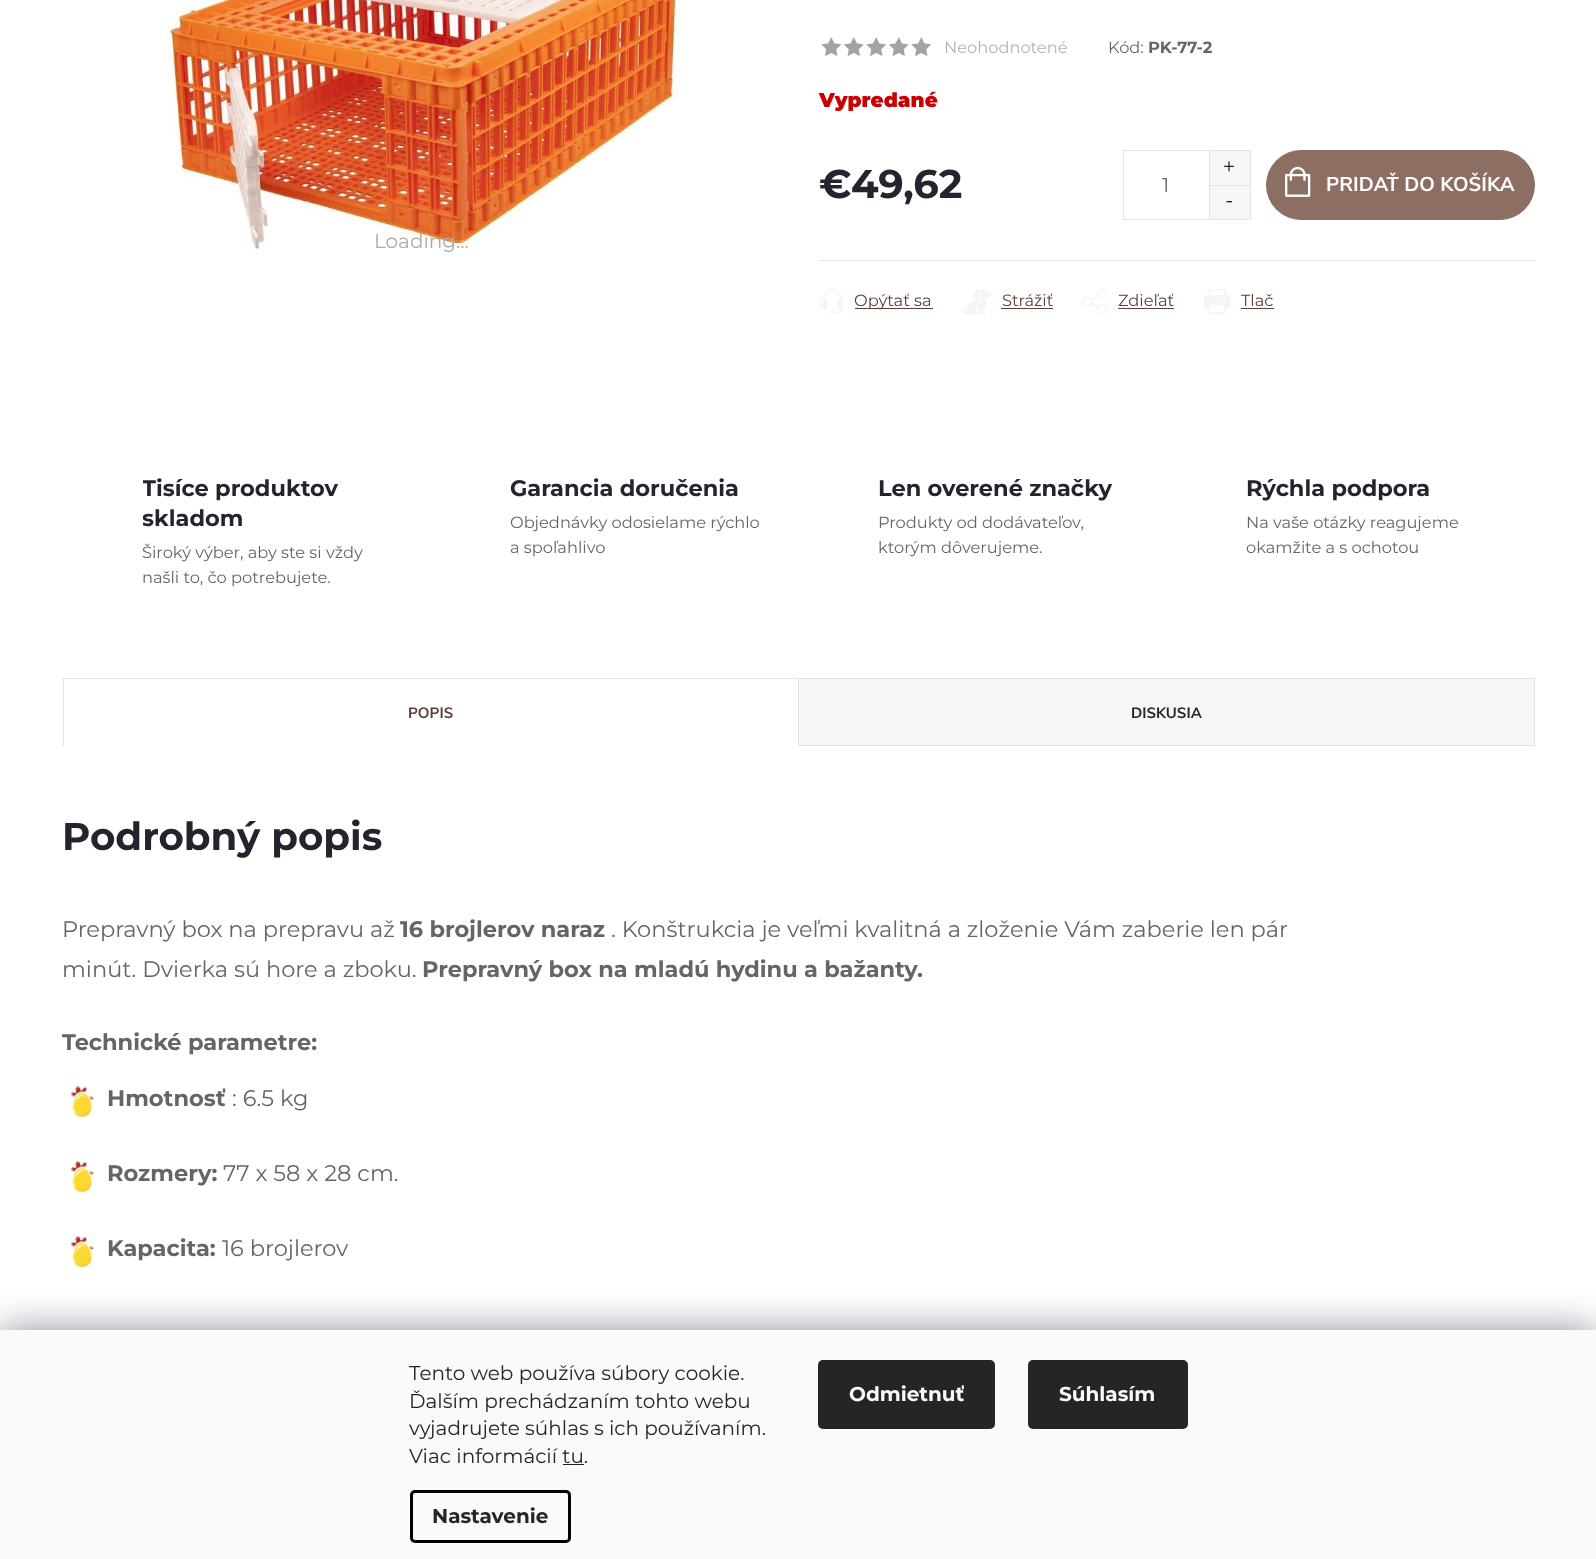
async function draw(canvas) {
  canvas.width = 1596;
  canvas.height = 1559;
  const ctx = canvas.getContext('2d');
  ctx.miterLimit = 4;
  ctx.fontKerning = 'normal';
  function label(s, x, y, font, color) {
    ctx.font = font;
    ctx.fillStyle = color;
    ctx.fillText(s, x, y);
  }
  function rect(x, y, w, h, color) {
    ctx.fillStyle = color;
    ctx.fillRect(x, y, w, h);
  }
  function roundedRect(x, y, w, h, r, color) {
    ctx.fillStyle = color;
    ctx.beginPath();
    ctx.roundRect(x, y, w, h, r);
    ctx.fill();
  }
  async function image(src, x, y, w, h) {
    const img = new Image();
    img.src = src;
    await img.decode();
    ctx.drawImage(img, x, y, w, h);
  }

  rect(0, 0, 1596, 1559, '#fff');
  await image('assets/img1.png', 166, 0, 515, 252);
  label('Loading...', 374, 248, '20px Montserrat', '#b0aba8');
  await image('assets/img2.png', 821, 37, 21, 19);
  await image('assets/img3.png', 843, 37, 21, 19);
  await image('assets/img2.png', 866, 37, 21, 19);
  await image('assets/img3.png', 888, 37, 21, 19);
  await image('assets/img2.png', 911, 37, 21, 19);
  label('Neohodnotené', 944, 53, '16.25px Montserrat', '#b2b2b2');
  label('Kód:', 1108, 53, '16.25px Montserrat', '#656570');
  label('PK-77-2', 1148, 53, 'bold 16.25px Montserrat', '#656570');
  label('Vypredané', 819, 107, '900 20px Montserrat', '#cb0000');
  label('€49,62', 819, 198, 'bold 40px Montserrat', '#24242e');
  ctx.strokeStyle = '#e4e4e4';
  ctx.strokeRect(1123.5, 150.5, 127, 69);
  rect(1210, 151, 40, 34, '#f6f6f6');
  rect(1209, 151, 1, 34, '#e4e4e4');
  label('+', 1223, 172, '20px Nunito Sans', '#24242e');
  label('1', 1162, 192, '20px Montserrat', '#656570');
  rect(1210, 186, 40, 33, '#f6f6f6');
  rect(1209, 185, 41, 1, '#e4e4e4');
  rect(1209, 185, 1, 34, '#e4e4e4');
  label('-', 1225, 207, '20px Nunito Sans', '#24242e');
  ctx.fillStyle = '#8d6e63';
  ctx.beginPath();
  ctx.roundRect(1266.5, 150.5, 268, 69, 34.5);
  ctx.fill();
  ctx.strokeStyle = '#8d6e63';
  ctx.stroke();
  await image('assets/img4.png', 1285, 166, 26, 31);
  label('PRIDAŤ DO KOŠÍKA', 1326, 191, 'bold 20px Nunito Sans', '#fff');
  rect(820, 260, 715, 1, '#e4e4e4');
  await image('assets/img5.png', 820, 289, 25, 25);
  rect(855, 308, 78, 1, '#5d4037');
  label('Opýtať sa', 854, 306, '16.25px Montserrat', '#5d4037');
  await image('assets/img6.png', 962, 289, 30, 25);
  label('Strážiť', 1002, 306, '16.25px Montserrat', '#5d4037');
  rect(1001, 308, 52, 1, '#5d4037');
  await image('assets/img7.png', 1082, 289, 26, 25);
  label('Zdieľať', 1118, 306, '16.25px Montserrat', '#5d4037');
  rect(1118, 308, 56, 1, '#5d4037');
  await image('assets/img8.png', 1204, 289, 27, 25);
  label('Tlač', 1241, 306, '16.25px Montserrat', '#5d4037');
  rect(1241, 308, 33, 1, '#5d4037');
  ctx.save();
  ctx.beginPath();
  ctx.rect(143, 474, 287, 115);
  ctx.clip();
  label('Tisíce produktov', 142, 496, 'bold 22.5px Montserrat', '#24242e');
  label('skladom', 142, 526, 'bold 22.5px Montserrat', '#24242e');
  ctx.restore();
  label('Široký výber, aby ste si vždy', 142, 558, '16.25px Montserrat', '#656565');
  label('našli to, čo potrebujete.', 142, 583, '16.25px Montserrat', '#656565');
  label('Garancia doručenia', 510, 496, 'bold 22.5px Montserrat', '#24242e');
  label('Objednávky odosielame rýchlo', 510, 528, '16.25px Montserrat', '#656565');
  label('a spoľahlivo', 510, 553, '16.25px Montserrat', '#656565');
  label('Len overené značky', 878, 496, 'bold 22.5px Montserrat', '#24242e');
  label('Produkty od dodávateľov,', 878, 528, '16.25px Montserrat', '#656565');
  label('ktorým dôverujeme.', 878, 553, '16.25px Montserrat', '#656565');
  label('Rýchla podpora', 1246, 496, 'bold 22.5px Montserrat', '#24242e');
  label('Na vaše otázky reagujeme', 1246, 528, '16.25px Montserrat', '#656565');
  label('okamžite a s ochotou', 1246, 553, '16.25px Montserrat', '#656565');
  rect(799, 679, 735, 66, '#f6f6f6');
  rect(63, 678, 1472, 1, '#e4e4e4');
  rect(63, 678, 1, 68, '#e4e4e4');
  rect(798, 679, 1, 67, '#e4e4e4');
  rect(798, 745, 1, 1, '#fff');
  label('POPIS', 408, 718, 'bold 15px Nunito Sans', '#5d4037');
  rect(1534, 679, 1, 67, '#e4e4e4');
  rect(799, 745, 736, 1, '#e4e4e4');
  label('DISKUSIA', 1131, 718, 'bold 15px Nunito Sans', '#24242e');
  label('Podrobný popis', 62, 850, 'bold 38.75px Montserrat', '#24242e');
  label('Prepravný box na prepravu až', 62, 937, '22.5px Montserrat', '#656565');
  label('16 brojlerov naraz', 400, 937, 'bold 22.5px Montserrat', '#656565');
  label('. Konštrukcia je veľmi kvalitná a zloženie Vám zaberie len pár', 611, 937, '22.5px Montserrat', '#656565');
  label('minút. Dvierka sú hore a zboku.', 62, 977, '22.5px Montserrat', '#656565');
  label('Prepravný box na mladú hydinu a bažanty.', 422, 977, 'bold 22.5px Montserrat', '#656565');
  label('Technické parametre:', 62, 1050, 'bold 22.5px Montserrat', '#656565');
  await image('assets/img9.png', 71, 1086, 23, 32);
  label('Hmotnosť', 107, 1106, 'bold 22.5px Montserrat', '#656565');
  label(': 6.5 kg', 232, 1106, '22.5px Montserrat', '#656565');
  await image('assets/img9.png', 71, 1161, 23, 32);
  label('Rozmery:', 107, 1181, 'bold 22.5px Montserrat', '#656565');
  label('77 x 58 x 28 cm.', 223, 1181, '22.5px Montserrat', '#656565');
  await image('assets/img9.png', 71, 1236, 23, 32);
  label('Kapacita:', 107, 1256, 'bold 22.5px Montserrat', '#656565');
  label('16 brojlerov', 222, 1256, '22.5px Montserrat', '#656565');
  ctx.fillStyle = '#1b193980';
  ctx.filter = 'blur(19px)';
  ctx.beginPath();
  ctx.rect(0, 1330, 1596, 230);
  ctx.fill();
  ctx.filter = 'none';
  rect(0, 1330, 1596, 229, '#f8fafb');
  label('Tento web používa súbory cookie.', 409, 1380, '20px Montserrat', '#252525');
  label('Ďalším prechádzaním tohto webu', 409, 1408, '20px Montserrat', '#252525');
  label('vyjadrujete súhlas s ich používaním.', 409, 1435, '20px Montserrat', '#252525');
  label('Viac informácií tu.', 409, 1463, '20px Montserrat', '#252525');
  rect(563, 1464, 21, 1, '#252525');
  ctx.beginPath();
  ctx.roundRect(411.5, 1491.5, 158, 50, 3.5);
  ctx.strokeStyle = '#000';
  ctx.lineWidth = 3;
  ctx.stroke();
  label('Nastavenie', 432, 1523, 'bold 20px Montserrat', '#252525');
  roundedRect(818, 1360, 177, 69, 5, '#252525');
  label('Odmietnuť', 849, 1401, 'bold 20px Montserrat', '#f8fafb');
  roundedRect(1028, 1360, 160, 69, 5, '#252525');
  label('Súhlasím', 1059, 1401, 'bold 20px Montserrat', '#f8fafb');
}

draw(document.querySelector('canvas'));
